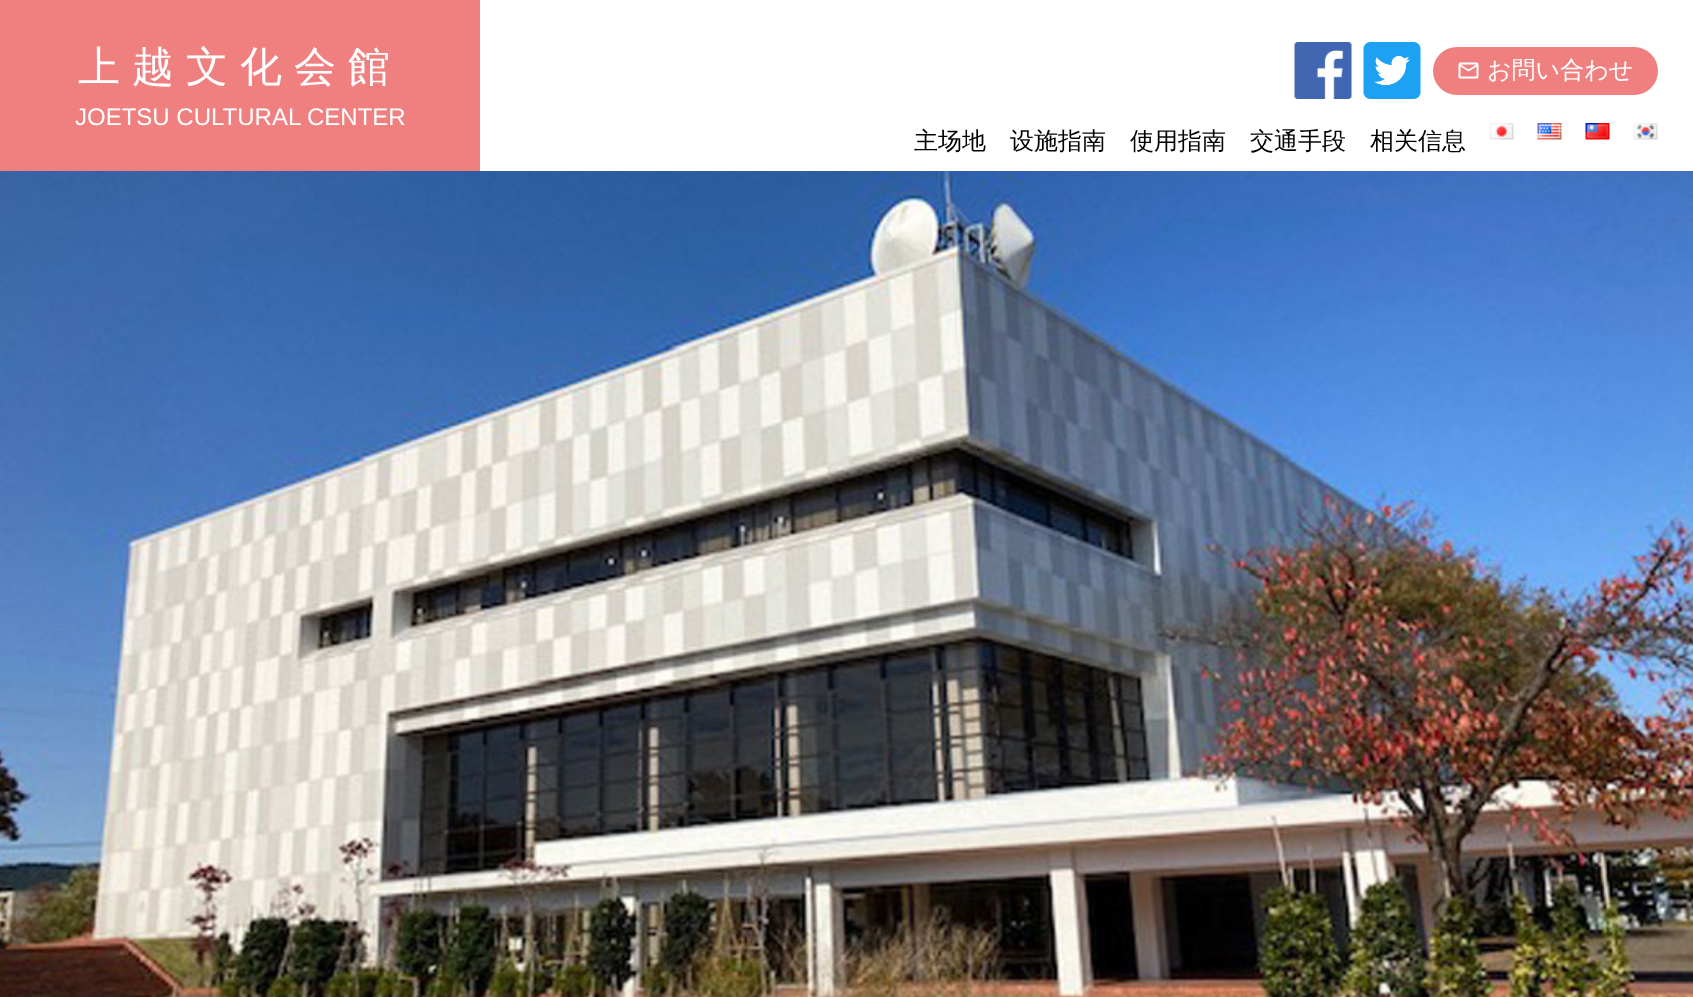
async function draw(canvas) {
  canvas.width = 1693;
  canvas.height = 997;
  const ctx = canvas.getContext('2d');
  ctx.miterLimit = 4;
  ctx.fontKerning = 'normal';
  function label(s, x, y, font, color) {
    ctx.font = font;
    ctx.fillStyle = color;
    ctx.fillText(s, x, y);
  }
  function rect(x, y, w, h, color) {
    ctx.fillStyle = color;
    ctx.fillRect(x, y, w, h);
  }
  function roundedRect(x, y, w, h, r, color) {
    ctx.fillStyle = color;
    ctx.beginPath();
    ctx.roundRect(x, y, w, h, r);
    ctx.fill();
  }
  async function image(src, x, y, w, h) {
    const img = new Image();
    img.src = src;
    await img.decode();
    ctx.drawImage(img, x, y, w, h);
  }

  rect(0, 0, 1693, 997, '#fff');
  rect(0, 0, 480, 171, '#f08080');
  ctx.letterSpacing = '12px';
  label('上越文化会館', 78, 81, '500 42px WenQuanYi Zen Hei', '#fff');
  ctx.letterSpacing = '0px';
  label('JOETSU CULTURAL CENTER', 75, 125, '24px Liberation Sans', '#fff');
  await image('assets/img1.png', 1294, 42, 58, 57);
  await image('assets/img2.png', 1363, 42, 58, 57);
  roundedRect(1433, 47, 225, 48, 24, '#f08080');
  await image('assets/img3.png', 1458, 62, 21, 17);
  label('お問い合わせ', 1487, 78, '500 24px WenQuanYi Zen Hei', '#fff');
  label('主场地', 914, 149, '500 24px WenQuanYi Zen Hei', '#000');
  label('设施指南', 1010, 149, '500 24px WenQuanYi Zen Hei', '#000');
  label('使用指南', 1130, 149, '500 24px WenQuanYi Zen Hei', '#000');
  label('交通手段', 1250, 149, '500 24px WenQuanYi Zen Hei', '#000');
  label('相关信息', 1370, 149, '500 24px WenQuanYi Zen Hei', '#000');
  await image('assets/img4.png', 1489, 123, 25, 17);
  await image('assets/img5.png', 1537, 123, 25, 17);
  await image('assets/img6.png', 1585, 123, 25, 17);
  await image('assets/img7.png', 1633, 123, 25, 17);
  await image('assets/img8.png', 0, 171, 1693, 826);
}

draw(document.querySelector('canvas'));
